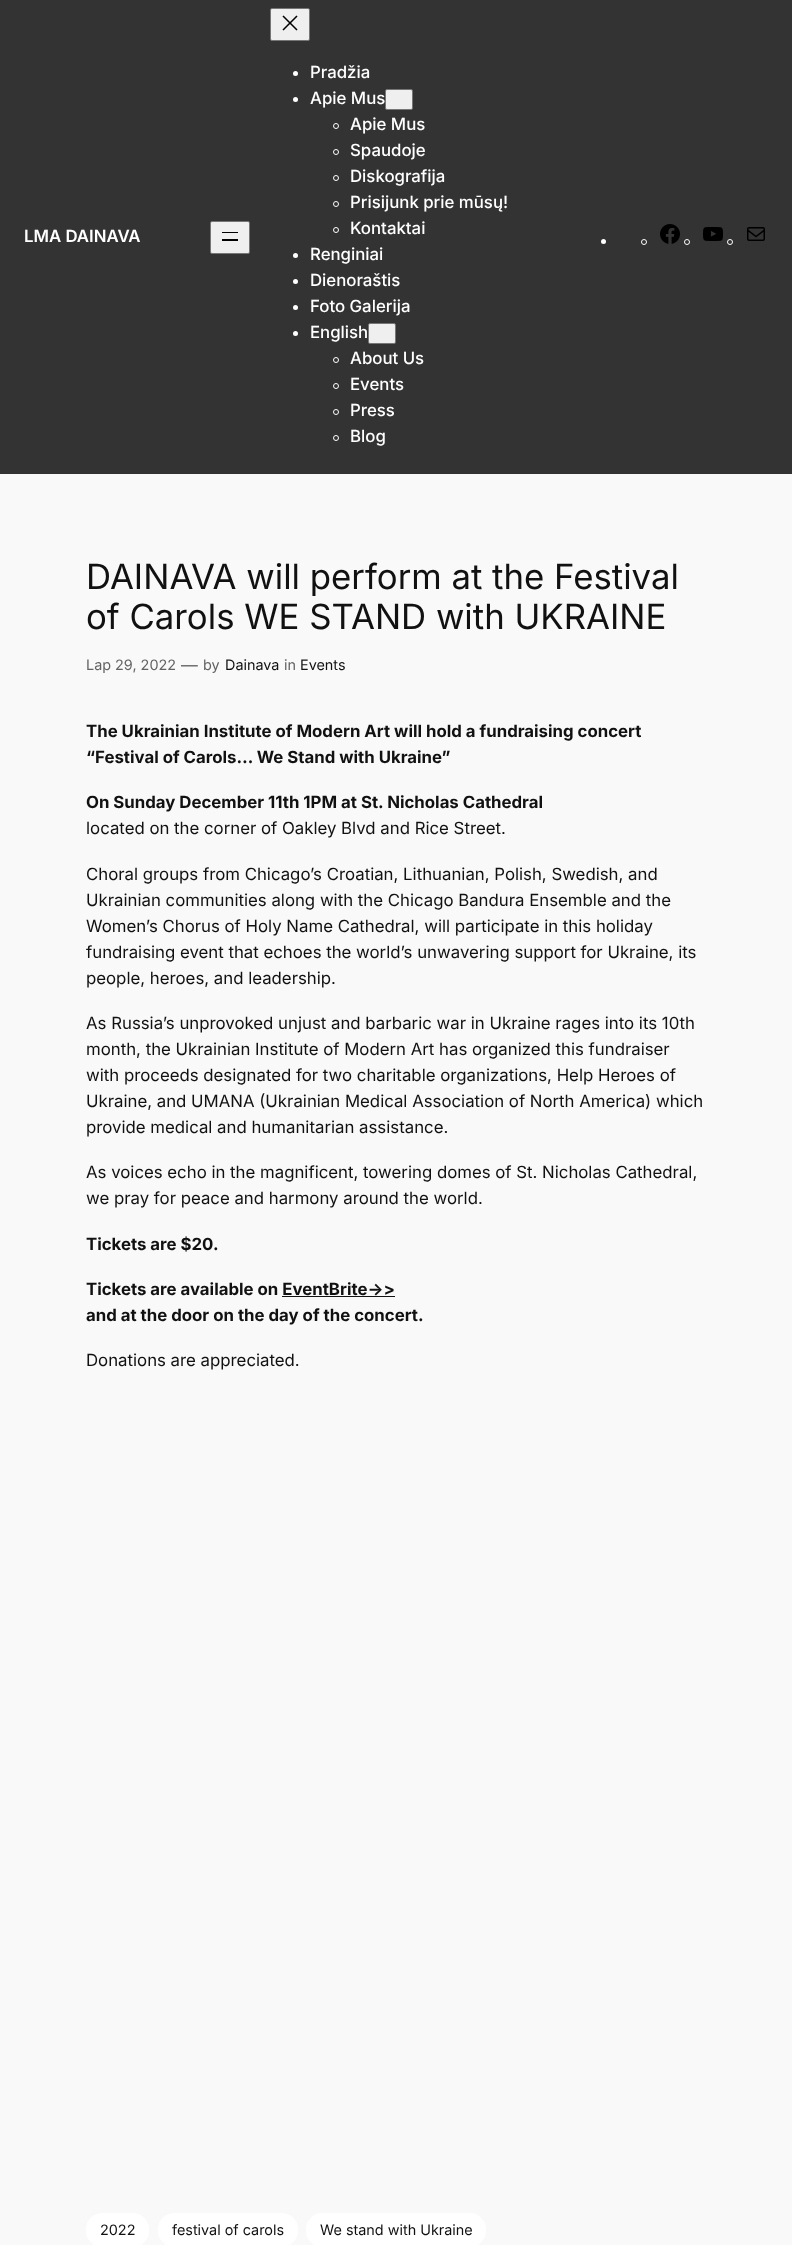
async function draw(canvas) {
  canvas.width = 792;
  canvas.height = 2245;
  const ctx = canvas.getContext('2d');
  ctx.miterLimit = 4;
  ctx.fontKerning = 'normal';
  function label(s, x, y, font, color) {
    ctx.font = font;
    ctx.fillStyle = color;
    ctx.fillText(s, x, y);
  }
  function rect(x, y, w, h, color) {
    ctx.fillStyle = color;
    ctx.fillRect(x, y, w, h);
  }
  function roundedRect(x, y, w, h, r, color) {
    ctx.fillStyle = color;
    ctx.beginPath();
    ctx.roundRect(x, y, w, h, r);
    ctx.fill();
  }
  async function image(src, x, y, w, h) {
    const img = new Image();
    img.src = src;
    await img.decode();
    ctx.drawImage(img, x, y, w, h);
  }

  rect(0, 0, 792, 2245, '#f9f9f9');
  rect(0, 0, 792, 474, '#333');
  label('LMA DAINAVA', 24, 242, '600 16.8px Inter', '#fff');
  ctx.fillStyle = '#efefef';
  ctx.beginPath();
  ctx.roundRect(210.5, 221.5, 39, 32, 1.5);
  ctx.fill();
  ctx.strokeStyle = '#767676';
  ctx.stroke();
  rect(222, 232, 16, 1, '#000');
  rect(222, 239, 16, 2, '#000');
  ctx.fillStyle = '#efefef';
  ctx.beginPath();
  ctx.roundRect(270.5, 8.5, 39, 32, 1.5);
  ctx.fill();
  ctx.stroke();
  await image('assets/img1.png', 282, 15, 16, 16);
  ctx.fillStyle = '#fff';
  ctx.beginPath();
  ctx.arc(295.5, 73.5, 2.5, 0, 2 * Math.PI);
  ctx.fill();
  label('Pradžia', 310, 78, '500 16.8px Inter', '#fff');
  ctx.beginPath();
  ctx.arc(295.5, 99.5, 2.5, 0, 2 * Math.PI);
  ctx.fill();
  label('Apie Mus', 310, 104, '500 16.8px Inter', '#fff');
  ctx.fillStyle = '#efefef';
  ctx.beginPath();
  ctx.roundRect(385.5, 89.5, 27, 20, 1.5);
  ctx.fill();
  ctx.stroke();
  ctx.beginPath();
  ctx.arc(336, 126, 2.5, 0, 2 * Math.PI);
  ctx.strokeStyle = '#fff';
  ctx.stroke();
  label('Apie Mus', 350, 130, '500 16.8px Inter', '#fff');
  ctx.beginPath();
  ctx.arc(336, 152, 2.5, 0, 2 * Math.PI);
  ctx.stroke();
  label('Spaudoje', 350, 156, '500 16.8px Inter', '#fff');
  ctx.beginPath();
  ctx.arc(336, 178, 2.5, 0, 2 * Math.PI);
  ctx.stroke();
  label('Diskografija', 350, 182, '500 16.8px Inter', '#fff');
  ctx.beginPath();
  ctx.arc(336, 204, 2.5, 0, 2 * Math.PI);
  ctx.stroke();
  label('Prisijunk prie mūsų!', 350, 208, '500 16.8px Inter', '#fff');
  ctx.beginPath();
  ctx.arc(336, 230, 2.5, 0, 2 * Math.PI);
  ctx.stroke();
  label('Kontaktai', 350, 234, '500 16.8px Inter', '#fff');
  ctx.beginPath();
  ctx.arc(295.5, 255.5, 2.5, 0, 2 * Math.PI);
  ctx.fill();
  label('Renginiai', 310, 260, '500 16.8px Inter', '#fff');
  ctx.beginPath();
  ctx.arc(295.5, 281.5, 2.5, 0, 2 * Math.PI);
  ctx.fill();
  label('Dienoraštis', 310, 286, '500 16.8px Inter', '#fff');
  ctx.beginPath();
  ctx.arc(295.5, 307.5, 2.5, 0, 2 * Math.PI);
  ctx.fill();
  label('Foto Galerija', 310, 312, '500 16.8px Inter', '#fff');
  ctx.beginPath();
  ctx.arc(295.5, 333.5, 2.5, 0, 2 * Math.PI);
  ctx.fill();
  label('English', 310, 338, '500 16.8px Inter', '#fff');
  ctx.fillStyle = '#efefef';
  ctx.beginPath();
  ctx.roundRect(368.5, 323.5, 27, 20, 1.5);
  ctx.fill();
  ctx.strokeStyle = '#767676';
  ctx.stroke();
  ctx.beginPath();
  ctx.arc(336, 360, 2.5, 0, 2 * Math.PI);
  ctx.strokeStyle = '#fff';
  ctx.stroke();
  label('About Us', 350, 364, '500 16.8px Inter', '#fff');
  ctx.beginPath();
  ctx.arc(336, 386, 2.5, 0, 2 * Math.PI);
  ctx.stroke();
  label('Events', 350, 390, '500 16.8px Inter', '#fff');
  ctx.beginPath();
  ctx.arc(336, 412, 2.5, 0, 2 * Math.PI);
  ctx.stroke();
  label('Press', 350, 416, '500 16.8px Inter', '#fff');
  ctx.beginPath();
  ctx.arc(336, 438, 2.5, 0, 2 * Math.PI);
  ctx.stroke();
  label('Blog', 350, 442, '500 16.8px Inter', '#fff');
  ctx.beginPath();
  ctx.arc(603.5, 241.5, 2.5, 0, 2 * Math.PI);
  ctx.fill();
  ctx.beginPath();
  ctx.arc(644, 242, 2.5, 0, 2 * Math.PI);
  ctx.stroke();
  await image('assets/img2.png', 660, 224, 20, 20);
  await image('assets/img3.png', 703, 227, 20, 14);
  ctx.beginPath();
  ctx.arc(687, 242, 2.5, 0, 2 * Math.PI);
  ctx.stroke();
  await image('assets/img4.png', 747, 227, 18, 14);
  ctx.beginPath();
  ctx.arc(730, 242, 2.5, 0, 2 * Math.PI);
  ctx.stroke();
  label('DAINAVA will perform at the Festival', 86, 589, '34.75px Inter', '#111');
  label('of Carols WE STAND with UKRAINE', 86, 629, '34.75px Inter', '#111');
  label('Lap 29, 2022', 86, 670, '14.4px Inter', '#636363');
  label('—', 181, 671, '16.8px Inter', '#636363');
  label('by', 203, 670, '14.4px Inter', '#636363');
  label('Dainava', 225, 670, '14.4px Inter', '#111');
  label('in', 284, 670, '14.4px Inter', '#636363');
  label('Events', 300, 670, '14.4px Inter', '#111');
  label('The Ukrainian Institute of Modern Art will hold a fundraising concert', 86, 737, 'bold 16.8px Inter', '#111');
  label('“Festival of Carols… We Stand with Ukraine”', 86, 763, 'bold 16.8px Inter', '#111');
  label('On Sunday December 11th 1PM at St. Nicholas Cathedral', 86, 808, 'bold 16.8px Inter', '#111');
  label('located on the corner of Oakley Blvd and Rice Street.', 86, 834, '16.8px Inter', '#111');
  label('Choral groups from Chicago’s Croatian, Lithuanian, Polish, Swedish, and', 86, 880, '16.8px Inter', '#111');
  label('Ukrainian communities along with the Chicago Bandura Ensemble and the', 86, 906, '16.8px Inter', '#111');
  label('Women’s Chorus of Holy Name Cathedral, will participate in this holiday', 86, 932, '16.8px Inter', '#111');
  label('fundraising event that echoes the world’s unwavering support for Ukraine, its', 86, 958, '16.8px Inter', '#111');
  label('people, heroes, and leadership.', 86, 984, '16.8px Inter', '#111');
  label('As Russia’s unprovoked unjust and barbaric war in Ukraine rages into its 10th', 86, 1029, '16.8px Inter', '#111');
  label('month, the Ukrainian Institute of Modern Art has organized this fundraiser', 86, 1055, '16.8px Inter', '#111');
  label('with proceeds designated for two charitable organizations, Help Heroes of', 86, 1081, '16.8px Inter', '#111');
  label('Ukraine, and UMANA (Ukrainian Medical Association of North America) which', 86, 1107, '16.8px Inter', '#111');
  label('provide medical and humanitarian assistance.', 86, 1133, '16.8px Inter', '#111');
  label('As voices echo in the magnificent, towering domes of St. Nicholas Cathedral,', 86, 1178, '16.8px Inter', '#111');
  label('we pray for peace and harmony around the world.', 86, 1204, '16.8px Inter', '#111');
  label('Tickets are $20.', 86, 1250, 'bold 16.8px Inter', '#111');
  label('Tickets are available on EventBrite->>', 86, 1295, 'bold 16.8px Inter', '#111');
  rect(282, 1296, 113, 1, '#111');
  label('and at the door on the day of the concert.', 86, 1321, 'bold 16.8px Inter', '#111');
  label('Donations are appreciated.', 86, 1366, '16.8px Inter', '#111');
  roundedRect(86, 2213, 63, 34, 16, '#fff');
  label('2022', 100, 2235, '14.4px Inter', '#111');
  roundedRect(158, 2213, 140, 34, 16, '#fff');
  label('festival of carols', 172, 2235, '14.4px Inter', '#111');
  roundedRect(306, 2213, 180, 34, 16, '#fff');
  label('We stand with Ukraine', 320, 2235, '14.4px Inter', '#111');
}

draw(document.querySelector('canvas'));
